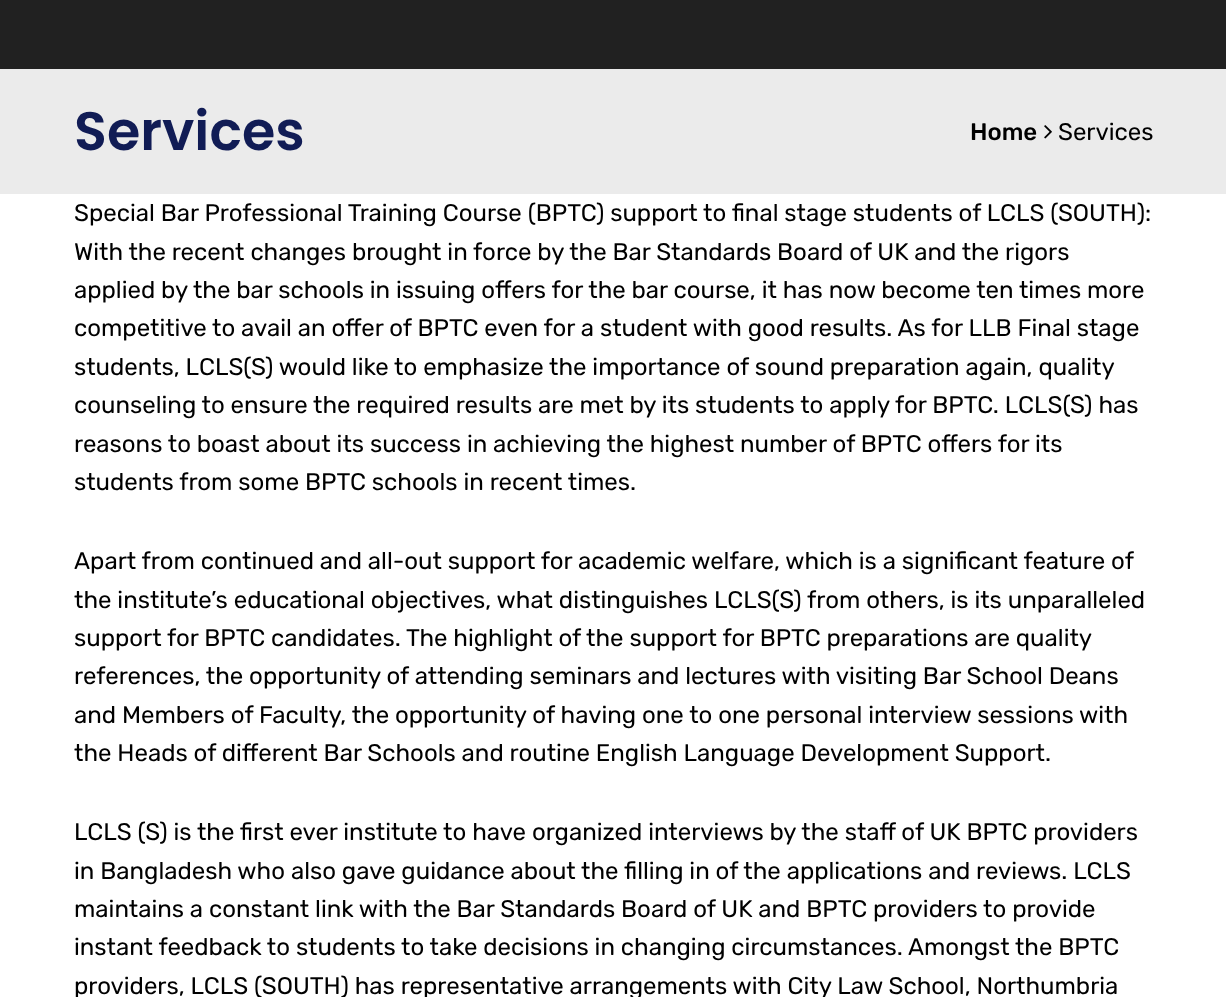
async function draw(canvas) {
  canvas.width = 1226;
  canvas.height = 997;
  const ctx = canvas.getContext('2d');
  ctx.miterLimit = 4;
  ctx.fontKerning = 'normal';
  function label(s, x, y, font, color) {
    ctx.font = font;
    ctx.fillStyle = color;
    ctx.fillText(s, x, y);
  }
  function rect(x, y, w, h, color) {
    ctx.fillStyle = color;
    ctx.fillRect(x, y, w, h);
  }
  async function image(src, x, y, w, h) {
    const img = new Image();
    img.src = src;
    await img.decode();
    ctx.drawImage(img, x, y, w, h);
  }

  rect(0, 0, 1226, 997, '#fff');
  rect(0, 0, 1226, 69, '#212121');
  rect(0, 69, 1226, 125, '#ebebeb');
  label('Services', 74, 150, '600 54px Poppins', '#111c55');
  label('Home', 970, 140, '500 24px Rubik', '#000');
  await image('assets/img1.png', 1044, 125, 8, 14);
  label('Services', 1058, 140, '24px Rubik', '#000');
  label('Special Bar Professional Training Course (BPTC) support to final stage students of LCLS (SOUTH):', 74, 221, '24px Rubik', '#000');
  label('With the recent changes brought in force by the Bar Standards Board of UK and the rigors', 74, 260, '24px Rubik', '#000');
  label('applied by the bar schools in issuing offers for the bar course, it has now become ten times more', 74, 298, '24px Rubik', '#000');
  label('competitive to avail an offer of BPTC even for a student with good results. As for LLB Final stage', 74, 336, '24px Rubik', '#000');
  label('students, LCLS(S) would like to emphasize the importance of sound preparation again, quality', 74, 375, '24px Rubik', '#000');
  label('counseling to ensure the required results are met by its students to apply for BPTC. LCLS(S) has', 74, 413, '24px Rubik', '#000');
  label('reasons to boast about its success in achieving the highest number of BPTC offers for its', 74, 452, '24px Rubik', '#000');
  label('students from some BPTC schools in recent times.', 74, 490, '24px Rubik', '#000');
  label('Apart from continued and all-out support for academic welfare, which is a significant feature of', 74, 569, '24px Rubik', '#000');
  label('the institute’s educational objectives, what distinguishes LCLS(S) from others, is its unparalleled', 74, 608, '24px Rubik', '#000');
  label('support for BPTC candidates. The highlight of the support for BPTC preparations are quality', 74, 646, '24px Rubik', '#000');
  label('references, the opportunity of attending seminars and lectures with visiting Bar School Deans', 74, 684, '24px Rubik', '#000');
  label('and Members of Faculty, the opportunity of having one to one personal interview sessions with', 74, 723, '24px Rubik', '#000');
  label('the Heads of different Bar Schools and routine English Language Development Support.', 74, 761, '24px Rubik', '#000');
  label('LCLS (S) is the first ever institute to have organized interviews by the staff of UK BPTC providers', 74, 840, '24px Rubik', '#000');
  label('in Bangladesh who also gave guidance about the filling in of the applications and reviews. LCLS', 74, 879, '24px Rubik', '#000');
  label('maintains a constant link with the Bar Standards Board of UK and BPTC providers to provide', 74, 917, '24px Rubik', '#000');
  label('instant feedback to students to take decisions in changing circumstances. Amongst the BPTC', 74, 955, '24px Rubik', '#000');
  label('providers, LCLS (SOUTH) has representative arrangements with City Law School, Northumbria', 74, 994, '24px Rubik', '#000');
}

draw(document.querySelector('canvas'));
